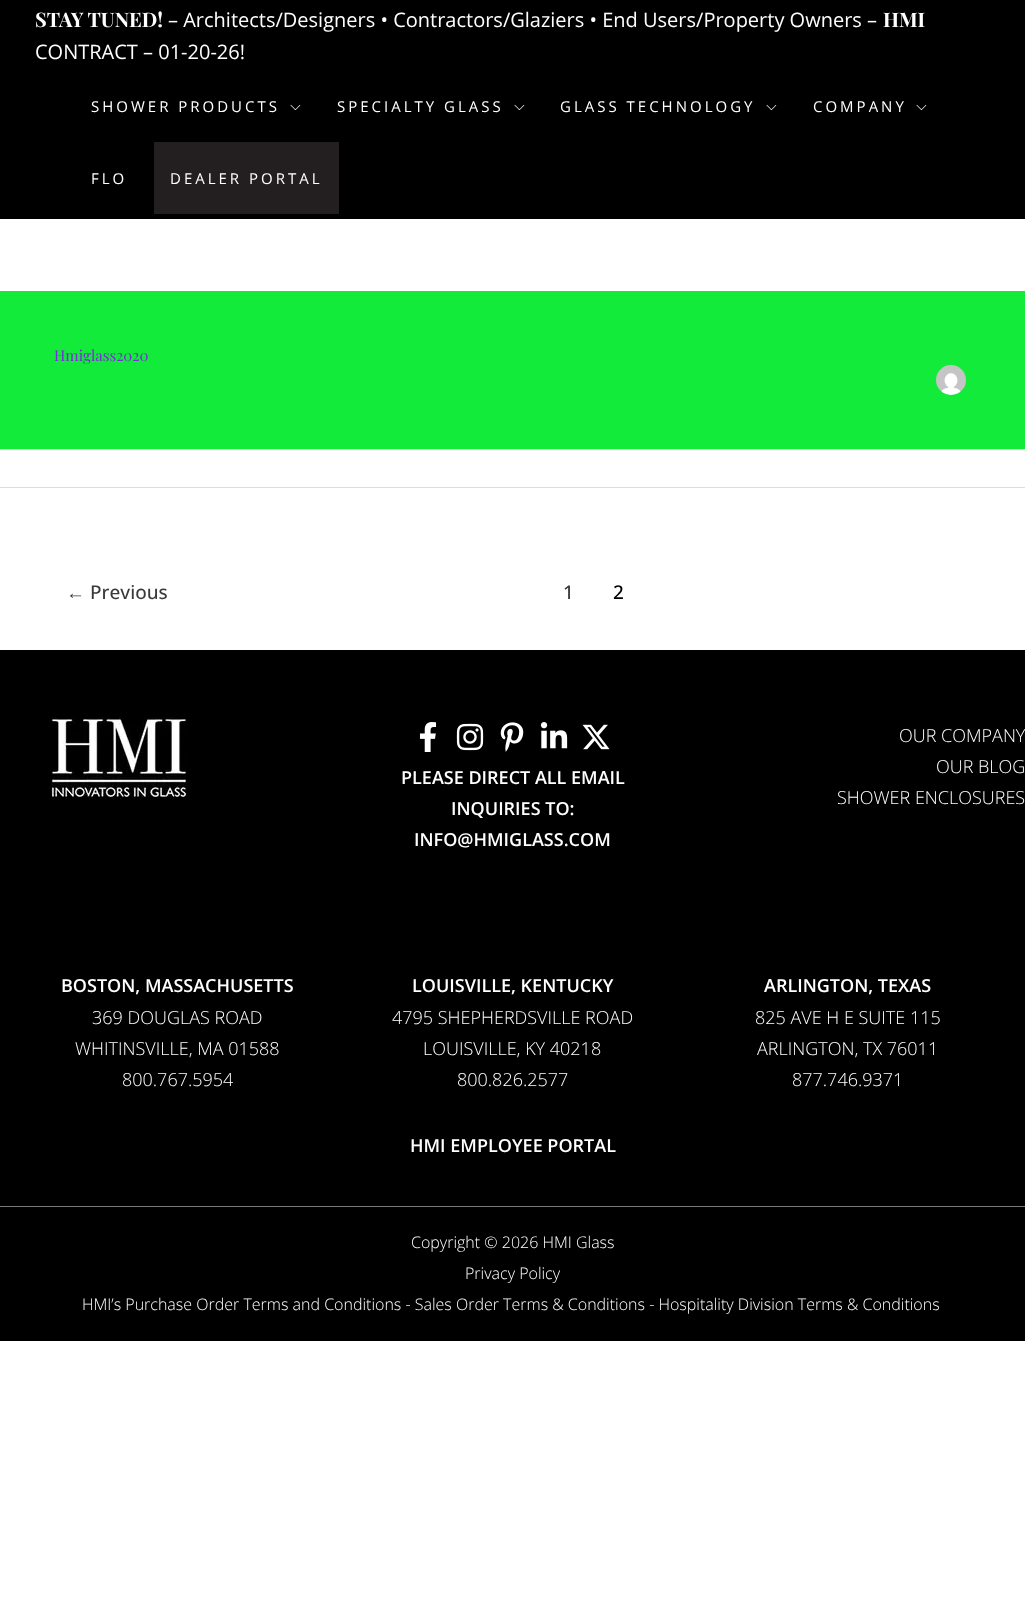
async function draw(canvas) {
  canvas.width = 1025;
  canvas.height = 1622;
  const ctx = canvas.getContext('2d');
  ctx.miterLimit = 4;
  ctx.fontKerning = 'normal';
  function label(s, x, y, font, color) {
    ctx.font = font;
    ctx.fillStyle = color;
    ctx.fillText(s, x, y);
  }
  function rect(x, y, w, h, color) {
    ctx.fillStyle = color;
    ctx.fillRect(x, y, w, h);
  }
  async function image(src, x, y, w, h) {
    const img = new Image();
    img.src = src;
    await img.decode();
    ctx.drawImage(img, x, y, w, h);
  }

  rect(0, 0, 1025, 1622, '#fff');
  rect(0, 0, 1025, 219, '#000');
  label('STAY TUNED!', 35, 27, 'bold 20px Playfair Display', '#fff');
  label('– Architects/Designers • Contractors/Glaziers • End Users/Property Owners –', 168, 27, '20px Open Sans', '#fff');
  label('HMI', 883, 27, 'bold 20px Playfair Display', '#fff');
  label('CONTRACT – 01-20-26!', 35, 59, '20px Open Sans', '#fff');
  ctx.letterSpacing = '3px';
  label('SHOWER PRODUCTS', 91, 112, '15px Open Sans', '#fff');
  await image('assets/img1.png', 290, 104, 11, 7);
  label('SPECIALTY GLASS', 337, 112, '15px Open Sans', '#fff');
  await image('assets/img1.png', 514, 104, 11, 7);
  label('GLASS TECHNOLOGY', 560, 112, '15px Open Sans', '#fff');
  await image('assets/img1.png', 766, 104, 11, 7);
  label('COMPANY', 813, 112, '15px Open Sans', '#fff');
  await image('assets/img1.png', 916, 104, 11, 7);
  label('FLO', 91, 184, '15px Open Sans', '#fff');
  rect(154, 142, 185, 72, '#231f20');
  label('DEALER PORTAL', 170, 184, '15px Open Sans', '#fff');
  rect(0, 291, 1025, 158, '#13eb3b');
  rect(0, 449, 1025, 1, '#ddd');
  ctx.letterSpacing = '0px';
  label('Hmiglass2020', 54, 361, '15px Playfair Display', '#8224e3');
  await image('assets/img2.png', 936, 365, 30, 30);
  rect(0, 487, 1025, 1, '#ddd');
  label('←', 66, 599, '19px Liberation Sans', '#3a3a3a');
  label('Previous', 90, 599, '500 19px Open Sans', '#3a3a3a');
  label('1', 563, 599, '500 19px Open Sans', '#3a3a3a');
  label('2', 613, 599, '500 19px Open Sans', '#000');
  rect(0, 650, 1025, 556, '#000');
  await image('assets/img3.png', 51, 717, 136, 80);
  await image('assets/img4.png', 419, 722, 18, 30);
  await image('assets/img5.png', 456, 723, 28, 28);
  await image('assets/img6.png', 500, 722, 24, 30);
  await image('assets/img7.png', 540, 722, 28, 27);
  await image('assets/img8.png', 582, 724, 28, 26);
  label('PLEASE DIRECT ALL EMAIL', 401, 784, '600 18px Open Sans', '#fff');
  label('INQUIRIES TO:', 451, 815, '600 18px Open Sans', '#fff');
  label('INFO@HMIGLASS.COM', 414, 846, '600 18px Open Sans', '#fff');
  label('OUR COMPANY', 899, 742, '300 18px Open Sans', '#fff');
  label('OUR BLOG', 936, 773, '300 18px Open Sans', '#fff');
  label('SHOWER ENCLOSURES', 837, 804, '300 18px Open Sans', '#fff');
  label('BOSTON, MASSACHUSETTS', 61, 992, '600 18px Open Sans', '#fff');
  label('369 DOUGLAS ROAD', 92, 1024, '300 18px Open Sans', '#fff');
  label('WHITINSVILLE, MA 01588', 75, 1055, '300 18px Open Sans', '#fff');
  label('800.767.5954', 122, 1086, '300 18px Open Sans', '#fff');
  label('LOUISVILLE, KENTUCKY', 412, 992, '600 18px Open Sans', '#fff');
  label('4795 SHEPHERDSVILLE ROAD', 392, 1024, '300 18px Open Sans', '#fff');
  label('LOUISVILLE, KY 40218', 423, 1055, '300 18px Open Sans', '#fff');
  label('800.826.2577', 457, 1086, '300 18px Open Sans', '#fff');
  label('HMI EMPLOYEE PORTAL', 410, 1152, '600 18px Open Sans', '#fff');
  label('ARLINGTON, TEXAS', 764, 992, '600 18px Open Sans', '#fff');
  label('825 AVE H E SUITE 115', 755, 1024, '300 18px Open Sans', '#fff');
  label('ARLINGTON, TX 76011', 757, 1055, '300 18px Open Sans', '#fff');
  label('877.746.9371', 792, 1086, '300 18px Open Sans', '#fff');
  rect(0, 1207, 1025, 134, '#000');
  rect(0, 1206, 1025, 1, '#7a7a7a');
  label('Copyright © 2026 HMI Glass', 411, 1248, '300 16px Open Sans', '#fff');
  label('Privacy Policy', 465, 1279, '300 16px Open Sans', '#fff');
  label('HMI’s Purchase Order Terms and Conditions - Sales Order Terms & Conditions - Hospitality Division Terms & Conditions', 82, 1310, '300 16px Open Sans', '#fff');
}

draw(document.querySelector('canvas'));
